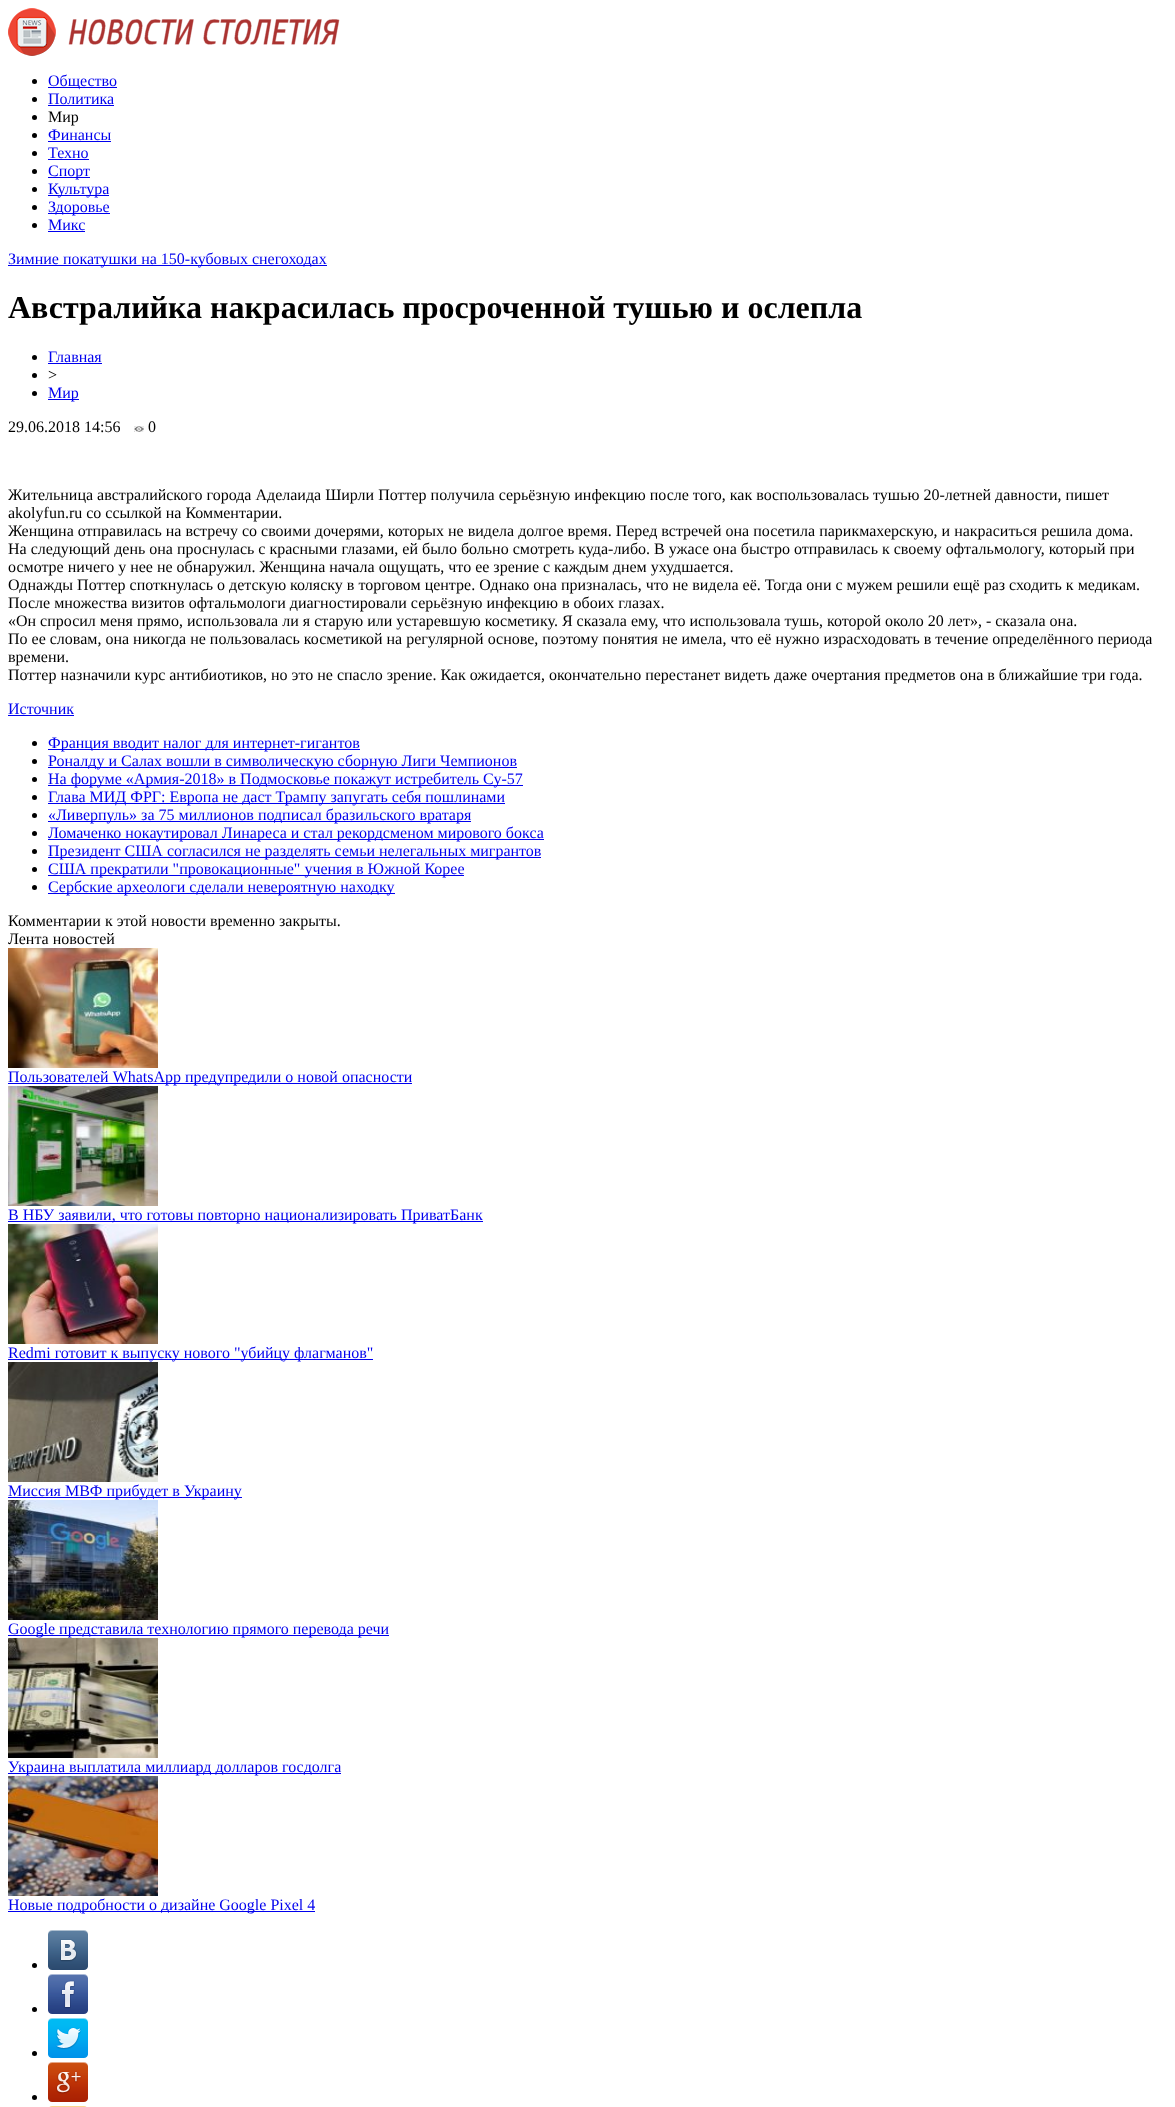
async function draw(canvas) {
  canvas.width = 1175;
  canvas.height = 2107;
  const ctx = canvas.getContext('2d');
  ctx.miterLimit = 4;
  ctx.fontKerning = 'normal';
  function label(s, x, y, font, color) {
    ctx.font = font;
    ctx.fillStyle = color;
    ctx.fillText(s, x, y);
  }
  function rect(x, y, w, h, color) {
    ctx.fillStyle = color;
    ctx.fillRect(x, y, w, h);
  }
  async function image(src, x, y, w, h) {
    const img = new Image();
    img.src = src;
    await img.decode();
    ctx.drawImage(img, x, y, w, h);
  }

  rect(0, 0, 1175, 2107, '#fff');
  await image('assets/img1.png', 8, 8, 332, 48);
  ctx.fillStyle = '#000';
  ctx.beginPath();
  ctx.arc(34.5, 81.5, 2.5, 0, 2 * Math.PI);
  ctx.fill();
  rect(48, 87, 69, 1, '#00e');
  label('Общество', 48, 86, '16px Liberation Serif', '#00e');
  ctx.fillStyle = '#000';
  ctx.beginPath();
  ctx.arc(34.5, 99.5, 2.5, 0, 2 * Math.PI);
  ctx.fill();
  label('Политика', 48, 104, '16px Liberation Serif', '#00e');
  rect(48, 105, 66, 1, '#00e');
  ctx.fillStyle = '#000';
  ctx.beginPath();
  ctx.arc(34.5, 117.5, 2.5, 0, 2 * Math.PI);
  ctx.fill();
  label('Мир', 48, 122, '16px Liberation Serif', '#000');
  ctx.beginPath();
  ctx.arc(34.5, 135.5, 2.5, 0, 2 * Math.PI);
  ctx.fill();
  label('Финансы', 48, 140, '16px Liberation Serif', '#00e');
  rect(48, 141, 63, 1, '#00e');
  ctx.fillStyle = '#000';
  ctx.beginPath();
  ctx.arc(34.5, 153.5, 2.5, 0, 2 * Math.PI);
  ctx.fill();
  label('Техно', 48, 158, '16px Liberation Serif', '#00e');
  rect(48, 159, 41, 1, '#00e');
  ctx.fillStyle = '#000';
  ctx.beginPath();
  ctx.arc(34.5, 171.5, 2.5, 0, 2 * Math.PI);
  ctx.fill();
  rect(48, 177, 42, 1, '#00e');
  label('Спорт', 48, 176, '16px Liberation Serif', '#00e');
  ctx.fillStyle = '#000';
  ctx.beginPath();
  ctx.arc(34.5, 189.5, 2.5, 0, 2 * Math.PI);
  ctx.fill();
  rect(48, 195, 61, 1, '#00e');
  label('Культура', 48, 194, '16px Liberation Serif', '#00e');
  ctx.fillStyle = '#000';
  ctx.beginPath();
  ctx.arc(34.5, 207.5, 2.5, 0, 2 * Math.PI);
  ctx.fill();
  rect(48, 213, 62, 1, '#00e');
  label('Здоровье', 48, 212, '16px Liberation Serif', '#00e');
  ctx.fillStyle = '#000';
  ctx.beginPath();
  ctx.arc(34.5, 225.5, 2.5, 0, 2 * Math.PI);
  ctx.fill();
  label('Микс', 48, 230, '16px Liberation Serif', '#00e');
  rect(48, 231, 37, 1, '#00e');
  rect(8, 265, 319, 1, '#00e');
  label('Зимние покатушки на 150-кубовых снегоходах', 8, 264, '16px Liberation Serif', '#00e');
  label('Австралийка накрасилась просроченной тушью и ослепла', 8, 318, 'bold 32px Liberation Serif', '#000');
  ctx.beginPath();
  ctx.arc(34.5, 357.5, 2.5, 0, 2 * Math.PI);
  ctx.fill();
  label('Главная', 48, 362, '16px Liberation Serif', '#00e');
  rect(48, 363, 54, 1, '#00e');
  ctx.fillStyle = '#000';
  ctx.beginPath();
  ctx.arc(34.5, 375.5, 2.5, 0, 2 * Math.PI);
  ctx.fill();
  label('>', 48, 380, '16px Liberation Serif', '#000');
  ctx.beginPath();
  ctx.arc(34.5, 393.5, 2.5, 0, 2 * Math.PI);
  ctx.fill();
  rect(48, 399, 31, 1, '#00e');
  label('Мир', 48, 398, '16px Liberation Serif', '#00e');
  label('29.06.2018 14:56', 8, 432, '16px Liberation Serif', '#000');
  await image('assets/img2.png', 134, 426, 10, 6);
  label('0', 148, 432, '16px Liberation Serif', '#000');
  label('Жительница австралийского города Аделаида Ширли Поттер получила серьёзную инфекцию после того, как воспользовалась тушью 20-летней давности, пишет', 8, 500, '16px Liberation Serif', '#000');
  label('akolyfun.ru со ссылкой на Комментарии.', 8, 518, '16px Liberation Serif', '#000');
  label('Женщина отправилась на встречу со своими дочерями, которых не видела долгое время. Перед встречей она посетила парикмахерскую, и накраситься решила дома.', 8, 536, '16px Liberation Serif', '#000');
  label('На следующий день она проснулась с красными глазами, ей было больно смотреть куда-либо. В ужасе она быстро отправилась к своему офтальмологу, который при', 8, 554, '16px Liberation Serif', '#000');
  label('осмотре ничего у нее не обнаружил. Женщина начала ощущать, что ее зрение с каждым днем ухудшается.', 8, 572, '16px Liberation Serif', '#000');
  label('Однажды Поттер споткнулась о детскую коляску в торговом центре. Однако она призналась, что не видела её. Тогда они с мужем решили ещё раз сходить к медикам.', 8, 590, '16px Liberation Serif', '#000');
  label('После множества визитов офтальмологи диагностировали серьёзную инфекцию в обоих глазах.', 8, 608, '16px Liberation Serif', '#000');
  label('«Он спросил меня прямо, использовала ли я старую или устаревшую косметику. Я сказала ему, что использовала тушь, которой около 20 лет», - сказала она.', 8, 626, '16px Liberation Serif', '#000');
  label('По ее словам, она никогда не пользовалась косметикой на регулярной основе, поэтому понятия не имела, что её нужно израсходовать в течение определённого периода', 8, 644, '16px Liberation Serif', '#000');
  label('времени.', 8, 662, '16px Liberation Serif', '#000');
  label('Поттер назначили курс антибиотиков, но это не спасло зрение. Как ожидается, окончательно перестанет видеть даже очертания предметов она в ближайшие три года.', 8, 680, '16px Liberation Serif', '#000');
  label('Источник', 8, 714, '16px Liberation Serif', '#00e');
  rect(8, 715, 66, 1, '#00e');
  ctx.fillStyle = '#000';
  ctx.beginPath();
  ctx.arc(34.5, 743.5, 2.5, 0, 2 * Math.PI);
  ctx.fill();
  rect(48, 749, 312, 1, '#00e');
  label('Франция вводит налог для интернет-гигантов', 48, 748, '16px Liberation Serif', '#00e');
  ctx.fillStyle = '#000';
  ctx.beginPath();
  ctx.arc(34.5, 761.5, 2.5, 0, 2 * Math.PI);
  ctx.fill();
  rect(48, 767, 469, 1, '#00e');
  label('Роналду и Салах вошли в символическую сборную Лиги Чемпионов', 48, 766, '16px Liberation Serif', '#00e');
  ctx.fillStyle = '#000';
  ctx.beginPath();
  ctx.arc(34.5, 779.5, 2.5, 0, 2 * Math.PI);
  ctx.fill();
  rect(48, 785, 475, 1, '#00e');
  label('На форуме «Армия-2018» в Подмосковье покажут истребитель Су-57', 48, 784, '16px Liberation Serif', '#00e');
  ctx.fillStyle = '#000';
  ctx.beginPath();
  ctx.arc(34.5, 797.5, 2.5, 0, 2 * Math.PI);
  ctx.fill();
  rect(48, 803, 457, 1, '#00e');
  label('Глава МИД ФРГ: Европа не даст Трампу запугать себя пошлинами', 48, 802, '16px Liberation Serif', '#00e');
  ctx.fillStyle = '#000';
  ctx.beginPath();
  ctx.arc(34.5, 815.5, 2.5, 0, 2 * Math.PI);
  ctx.fill();
  rect(48, 821, 423, 1, '#00e');
  label('«Ливерпуль» за 75 миллионов подписал бразильского вратаря', 48, 820, '16px Liberation Serif', '#00e');
  ctx.fillStyle = '#000';
  ctx.beginPath();
  ctx.arc(34.5, 833.5, 2.5, 0, 2 * Math.PI);
  ctx.fill();
  rect(48, 839, 496, 1, '#00e');
  label('Ломаченко нокаутировал Линареса и стал рекордсменом мирового бокса', 48, 838, '16px Liberation Serif', '#00e');
  ctx.fillStyle = '#000';
  ctx.beginPath();
  ctx.arc(34.5, 851.5, 2.5, 0, 2 * Math.PI);
  ctx.fill();
  rect(48, 857, 493, 1, '#00e');
  label('Президент США согласился не разделять семьи нелегальных мигрантов', 48, 856, '16px Liberation Serif', '#00e');
  ctx.fillStyle = '#000';
  ctx.beginPath();
  ctx.arc(34.5, 869.5, 2.5, 0, 2 * Math.PI);
  ctx.fill();
  rect(48, 875, 416, 1, '#00e');
  label('США прекратили "провокационные" учения в Южной Корее', 48, 874, '16px Liberation Serif', '#00e');
  ctx.fillStyle = '#000';
  ctx.beginPath();
  ctx.arc(34.5, 887.5, 2.5, 0, 2 * Math.PI);
  ctx.fill();
  rect(48, 893, 347, 1, '#00e');
  label('Сербские археологи сделали невероятную находку', 48, 892, '16px Liberation Serif', '#00e');
  label('Комментарии к этой новости временно закрыты.', 8, 926, '16px Liberation Serif', '#000');
  label('Лента новостей', 8, 944, '16px Liberation Serif', '#000');
  await image('assets/img3.png', 8, 948, 150, 120);
  rect(8, 1083, 404, 1, '#00e');
  label('Пользователей WhatsApp предупредили о новой опасности', 8, 1082, '16px Liberation Serif', '#00e');
  await image('assets/img4.png', 8, 1086, 150, 120);
  rect(8, 1221, 475, 1, '#00e');
  label('В НБУ заявили, что готовы повторно национализировать ПриватБанк', 8, 1220, '16px Liberation Serif', '#00e');
  await image('assets/img5.png', 8, 1224, 150, 120);
  rect(8, 1359, 365, 1, '#00e');
  label('Redmi готовит к выпуску нового "убийцу флагманов"', 8, 1358, '16px Liberation Serif', '#00e');
  await image('assets/img6.png', 8, 1362, 150, 120);
  rect(8, 1497, 234, 1, '#00e');
  label('Миссия МВФ прибудет в Украину', 8, 1496, '16px Liberation Serif', '#00e');
  await image('assets/img7.png', 8, 1500, 150, 120);
  rect(8, 1635, 381, 1, '#00e');
  label('Google представила технологию прямого перевода речи', 8, 1634, '16px Liberation Serif', '#00e');
  await image('assets/img8.png', 8, 1638, 150, 120);
  rect(8, 1773, 333, 1, '#00e');
  label('Украина выплатила миллиард долларов госдолга', 8, 1772, '16px Liberation Serif', '#00e');
  await image('assets/img9.png', 8, 1776, 150, 120);
  rect(8, 1911, 307, 1, '#00e');
  label('Новые подробности о дизайне Google Pixel 4', 8, 1910, '16px Liberation Serif', '#00e');
  ctx.fillStyle = '#000';
  ctx.beginPath();
  ctx.arc(34.5, 1965.5, 2.5, 0, 2 * Math.PI);
  ctx.fill();
  await image('assets/img10.png', 48, 1930, 40, 40);
  ctx.beginPath();
  ctx.arc(34.5, 2009.5, 2.5, 0, 2 * Math.PI);
  ctx.fill();
  await image('assets/img11.png', 48, 1974, 40, 40);
  ctx.beginPath();
  ctx.arc(34.5, 2053.5, 2.5, 0, 2 * Math.PI);
  ctx.fill();
  await image('assets/img12.png', 48, 2018, 40, 40);
  ctx.beginPath();
  ctx.arc(34.5, 2097.5, 2.5, 0, 2 * Math.PI);
  ctx.fill();
  await image('assets/img13.png', 48, 2062, 40, 40);
  await image('assets/img14.png', 49, 2106, 38, 1);
}

draw(document.querySelector('canvas'));
